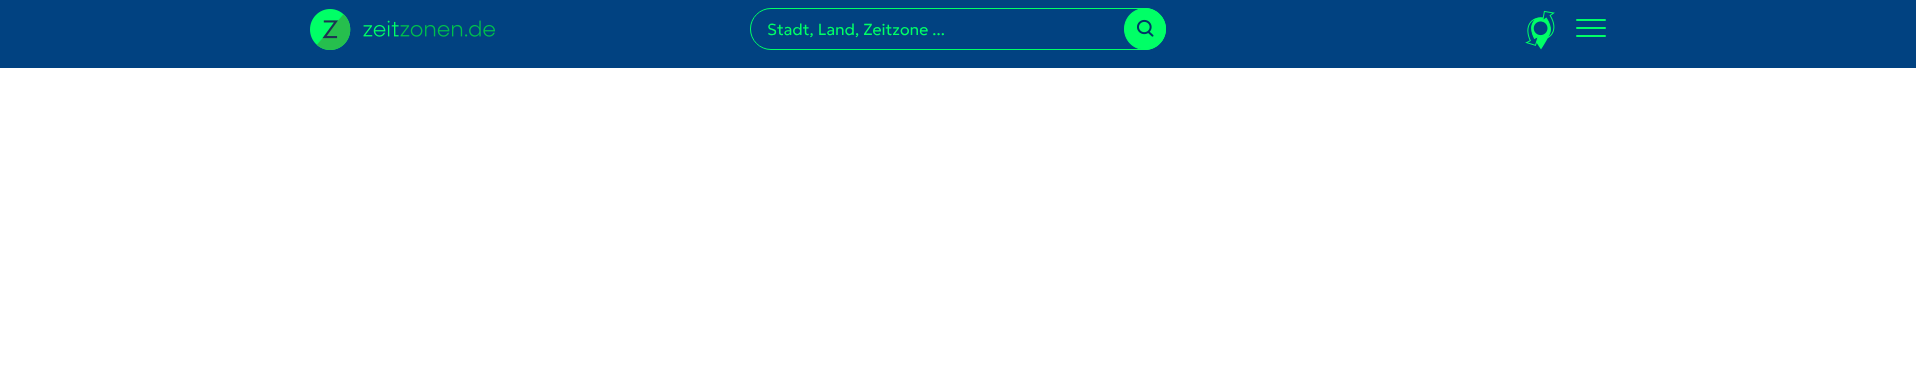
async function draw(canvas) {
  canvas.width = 1916;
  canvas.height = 390;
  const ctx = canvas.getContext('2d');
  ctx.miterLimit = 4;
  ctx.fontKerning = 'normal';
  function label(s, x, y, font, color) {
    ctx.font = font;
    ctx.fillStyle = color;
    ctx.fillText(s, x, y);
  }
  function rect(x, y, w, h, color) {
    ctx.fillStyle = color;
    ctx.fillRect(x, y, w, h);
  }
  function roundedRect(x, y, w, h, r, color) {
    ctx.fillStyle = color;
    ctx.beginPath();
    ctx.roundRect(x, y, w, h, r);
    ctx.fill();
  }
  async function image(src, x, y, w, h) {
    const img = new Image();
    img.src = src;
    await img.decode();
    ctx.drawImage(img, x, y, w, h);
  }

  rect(0, 0, 1916, 390, '#014281');
  await image('assets/img1.png', 310, 9, 185, 41);
  ctx.beginPath();
  ctx.roundRect(750.5, 8.5, 415, 41, 20.5);
  ctx.strokeStyle = '#0f6';
  ctx.stroke();
  label('Stadt, Land, Zeitzone ...', 767, 35, '100 16px Geologica', '#0f6');
  await image('assets/img2.png', 1124, 8, 42, 42);
  await image('assets/img3.png', 1525, 10, 30, 40);
  roundedRect(1576, 19, 30, 2, 1, '#0f6');
  roundedRect(1576, 27, 30, 2, 1, '#0f6');
  roundedRect(1576, 35, 30, 2, 1, '#0f6');
  rect(0, 68, 1916, 322, '#fff');
}

draw(document.querySelector('canvas'));
